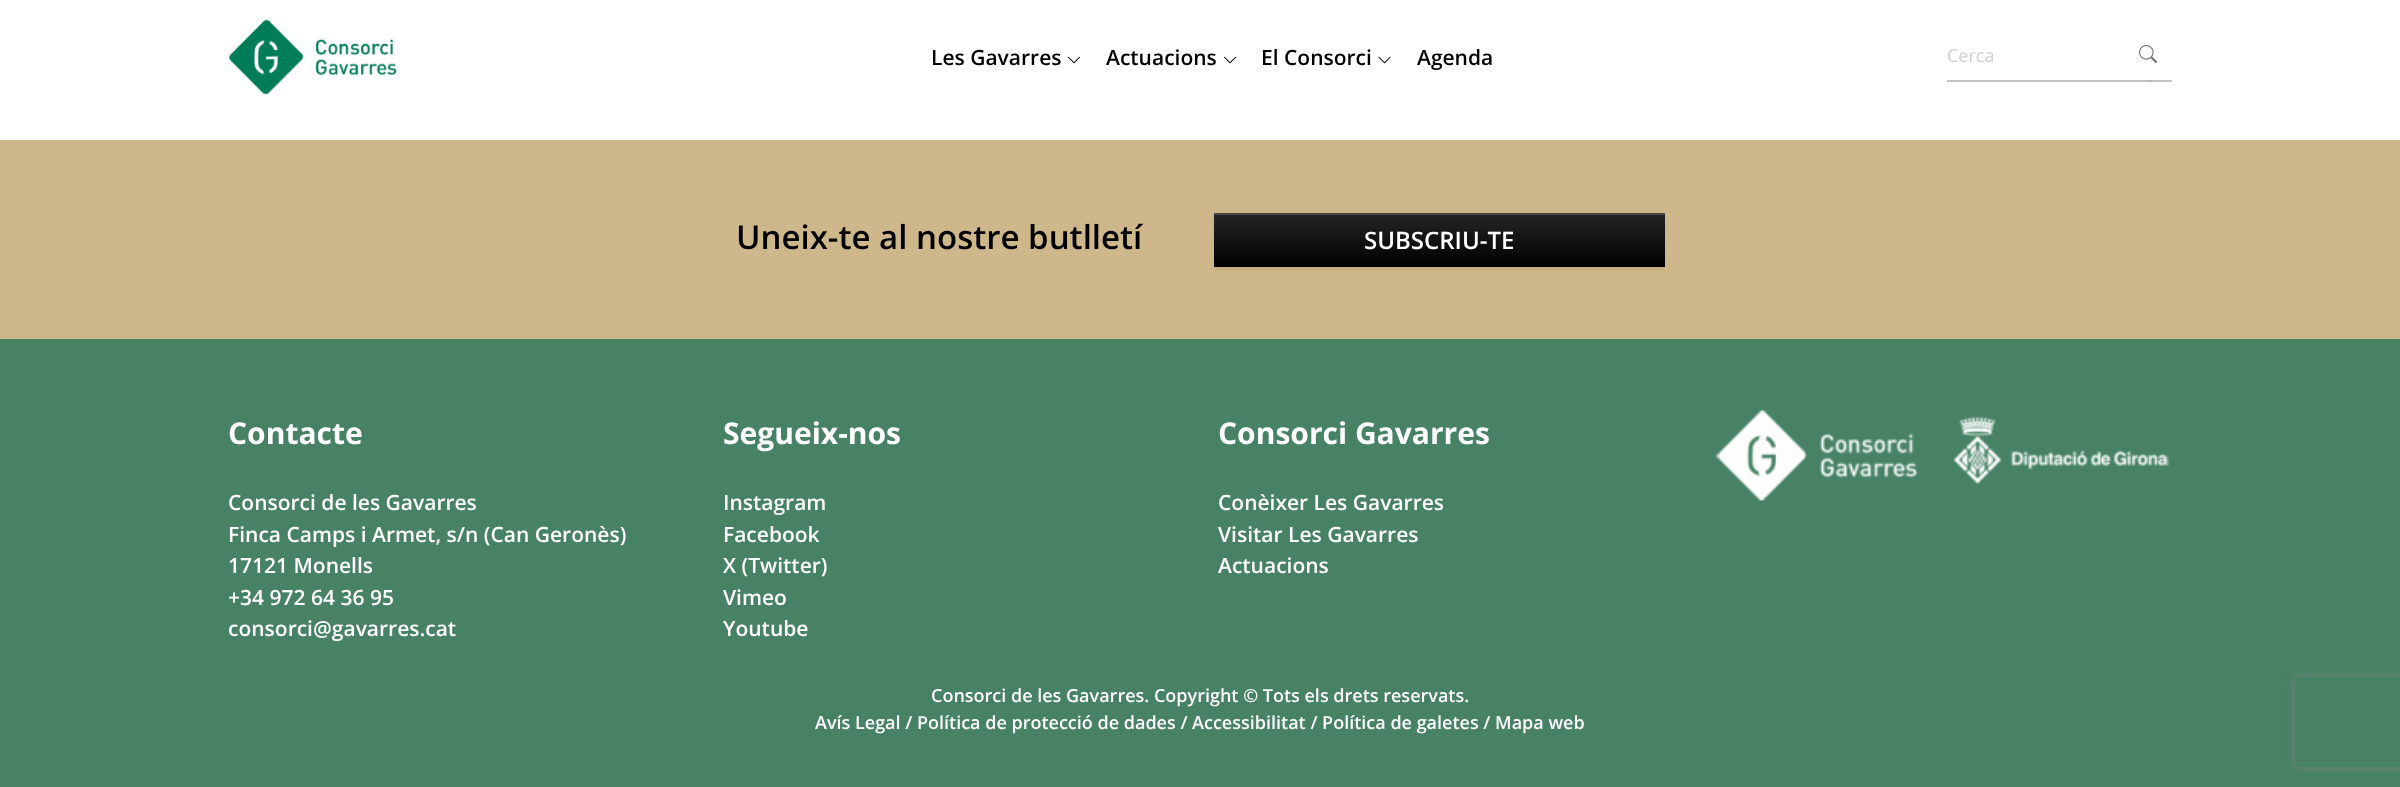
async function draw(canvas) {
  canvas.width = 2400;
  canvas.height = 787;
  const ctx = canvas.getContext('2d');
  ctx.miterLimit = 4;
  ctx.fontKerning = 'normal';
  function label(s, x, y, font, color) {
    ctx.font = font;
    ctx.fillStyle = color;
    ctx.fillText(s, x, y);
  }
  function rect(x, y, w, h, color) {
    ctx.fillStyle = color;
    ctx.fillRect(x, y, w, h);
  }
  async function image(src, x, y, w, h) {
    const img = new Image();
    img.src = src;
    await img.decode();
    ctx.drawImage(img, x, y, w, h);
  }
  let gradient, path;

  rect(0, 0, 2400, 787, '#fff');
  rect(1947, 80, 225, 2, '#c2c2c5');
  await image('assets/img1.png', 228, 19, 169, 76);
  label('Les Gavarres', 931, 65, '600 21px Open Sans', '#000');
  await image('assets/img2.png', 1067, 56, 14, 8);
  label('Actuacions', 1106, 65, '600 21px Open Sans', '#000');
  await image('assets/img2.png', 1223, 56, 14, 8);
  label('El Consorci', 1261, 65, '600 21px Open Sans', '#000');
  await image('assets/img3.png', 1378, 56, 13, 8);
  label('Agenda', 1417, 65, '600 21px Open Sans', '#000');
  label('Cerca', 1947, 62, '18px Open Sans', '#d0d0d0');
  rect(2150, 80, 1, 2, '#a9aaae');
  await image('assets/img4.png', 2139, 45, 18, 18);
  rect(0, 140, 2400, 199, '#ceb78a');
  label('Uneix-te al nostre butlletí', 736, 249, '600 33px Open Sans', '#000');
  ctx.fillStyle = '#00000012';
  ctx.filter = 'blur(1px)';
  ctx.beginPath();
  ctx.rect(1214, 215, 451, 54);
  ctx.fill();
  ctx.filter = 'none';
  gradient = ctx.createLinearGradient(1439, 213, 1439, 267);
  gradient.addColorStop(0, '#262626');
  gradient.addColorStop(1, '#000');
  ctx.fillStyle = gradient;
  ctx.fillRect(1214, 215, 451, 52);
  rect(1214, 213, 451, 2, '#464646');
  label('SUBSCRIU-TE', 1364, 249, '600 24px Open Sans', '#fff');
  rect(0, 339, 2400, 448, '#478265');
  label('Contacte', 228, 444, 'bold 30px Open Sans', '#fff');
  label('Consorci de les Gavarres', 228, 510, '600 21px Open Sans', '#fff');
  label('Finca Camps i Armet, s/n (Can Geronès)', 228, 542, '600 21px Open Sans', '#fff');
  label('17121 Monells', 228, 573, '600 21px Open Sans', '#fff');
  label('+34 972 64 36 95', 228, 605, '600 21px Open Sans', '#fff');
  label('consorci@gavarres.cat', 228, 636, '600 21px Open Sans', '#fff');
  label('Segueix-nos', 723, 444, 'bold 30px Open Sans', '#fff');
  label('Instagram', 723, 510, '600 21px Open Sans', '#fff');
  label('Facebook', 723, 542, '600 21px Open Sans', '#fff');
  label('X (Twitter)', 723, 573, '600 21px Open Sans', '#fff');
  label('Vimeo', 723, 605, '600 21px Open Sans', '#fff');
  label('Youtube', 723, 636, '600 21px Open Sans', '#fff');
  label('Consorci Gavarres', 1218, 444, 'bold 30px Open Sans', '#fff');
  label('Conèixer Les Gavarres', 1218, 510, '600 21px Open Sans', '#fff');
  label('Visitar Les Gavarres', 1218, 542, '600 21px Open Sans', '#fff');
  label('Actuacions', 1218, 573, '600 21px Open Sans', '#fff');
  await image('assets/img5.png', 1715, 410, 455, 91);
  label('Consorci de les Gavarres. Copyright © Tots els drets reservats.', 931, 702, '600 18px Open Sans', '#fff');
  label('Avís Legal / Política de protecció de dades / Accessibilitat / Política de galetes / Mapa web', 815, 729, '600 18px Open Sans', '#fff');
  ctx.save();
  path = new Path2D('M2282 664H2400V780H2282ZM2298 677H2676C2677.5 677 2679 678.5 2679 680V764C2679 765.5 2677.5 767 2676 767H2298C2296.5 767 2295 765.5 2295 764V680C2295 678.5 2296.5 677 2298 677Z');
  ctx.clip(path, 'evenodd');
  ctx.fillStyle = '#808080';
  ctx.filter = 'blur(4px)';
  ctx.beginPath();
  ctx.roundRect(2295, 677, 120, 90, 3);
  ctx.fill();
  ctx.filter = 'none';
  ctx.restore();
}

draw(document.querySelector('canvas'));
